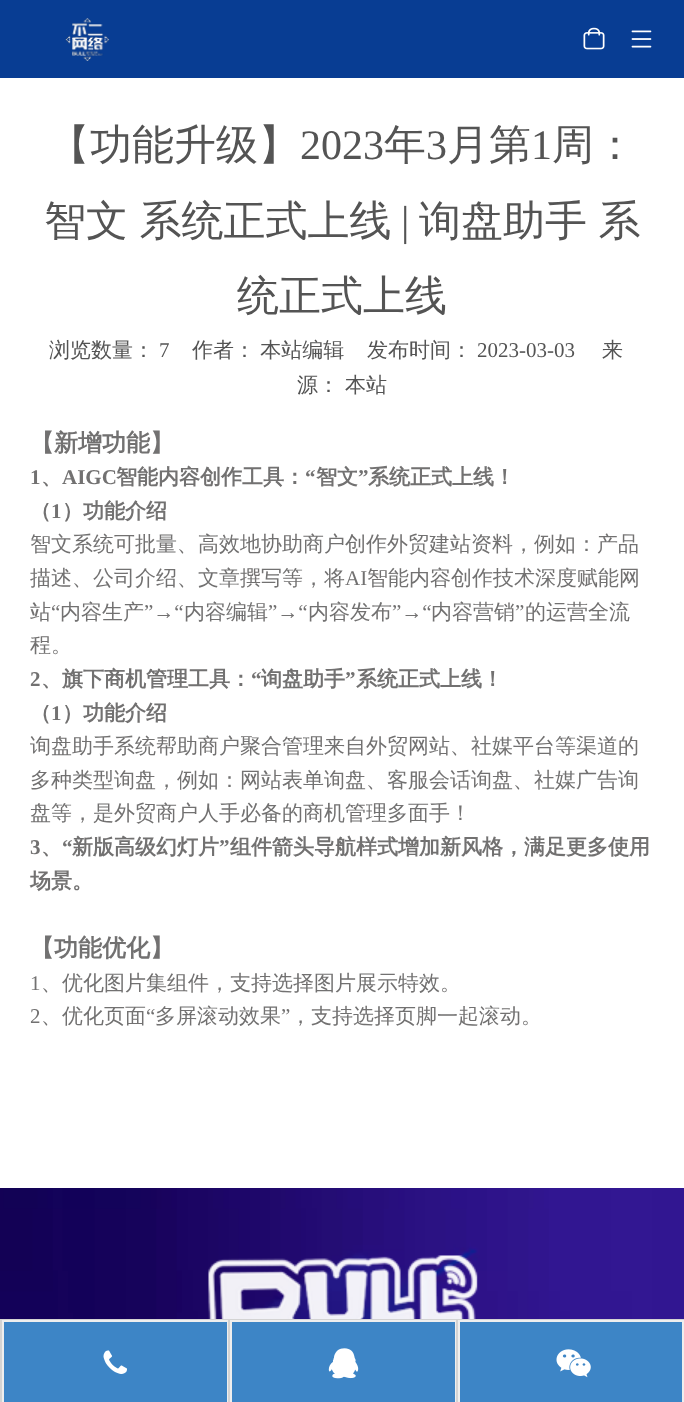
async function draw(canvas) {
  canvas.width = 684;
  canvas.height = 1402;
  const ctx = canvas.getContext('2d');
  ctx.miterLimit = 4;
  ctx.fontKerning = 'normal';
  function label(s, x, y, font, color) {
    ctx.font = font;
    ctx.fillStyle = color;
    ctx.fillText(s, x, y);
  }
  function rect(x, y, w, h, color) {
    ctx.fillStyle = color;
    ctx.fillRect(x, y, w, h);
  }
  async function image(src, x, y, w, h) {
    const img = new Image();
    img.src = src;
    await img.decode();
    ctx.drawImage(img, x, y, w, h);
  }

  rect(0, 0, 684, 1402, '#fff');
  rect(0, 0, 684, 78, '#083d93');
  await image('assets/img1.png', 65, 18, 45, 43);
  await image('assets/img2.png', 583, 27, 22, 23);
  await image('assets/img3.png', 631, 30, 21, 18);
  label('【功能升级】', 48, 159, '500 42px WenQuanYi Zen Hei', '#545454');
  label('2023', 300, 159, '42px Liberation Serif', '#545454');
  label('年', 384, 159, '500 42px WenQuanYi Zen Hei', '#545454');
  label('3', 426, 159, '42px Liberation Serif', '#545454');
  label('月第', 447, 159, '500 42px WenQuanYi Zen Hei', '#545454');
  label('1', 531, 159, '42px Liberation Serif', '#545454');
  label('周：', 552, 159, '500 42px WenQuanYi Zen Hei', '#545454');
  ctx.wordSpacing = '-1px';
  label('智文 系统正式上线', 44, 235, '500 42px WenQuanYi Zen Hei', '#545454');
  ctx.wordSpacing = '0px';
  label('|', 401, 235, '42px Liberation Serif', '#545454');
  ctx.wordSpacing = '-1px';
  label('询盘助手 系', 419, 235, '500 42px WenQuanYi Zen Hei', '#545454');
  ctx.wordSpacing = '0px';
  label('统正式上线', 237, 310, '500 42px WenQuanYi Zen Hei', '#545454');
  label('浏览数量：', 49, 357, '500 21px WenQuanYi Zen Hei', '#545454');
  label('7', 159, 357, '21px Liberation Serif', '#545454');
  ctx.wordSpacing = '-1px';
  label('作者： 本站编辑', 192, 357, '500 21px WenQuanYi Zen Hei', '#545454');
  ctx.wordSpacing = '0px';
  label('发布时间：', 367, 357, '500 21px WenQuanYi Zen Hei', '#545454');
  label('2023-03-03', 477, 357, '21px Liberation Serif', '#545454');
  label('来', 602, 357, '500 21px WenQuanYi Zen Hei', '#545454');
  label('源：', 297, 392, '500 21px WenQuanYi Zen Hei', '#545454');
  label('本站', 345, 392, '500 21px WenQuanYi Zen Hei', '#545454');
  label('【新增功能】', 30, 451, 'bold 24px WenQuanYi Zen Hei', '#727171');
  label('1', 30, 484, 'bold 21px Liberation Serif', '#727171');
  label('AIGC', 62, 484, 'bold 21px Liberation Serif', '#727171');
  label('智能内容创作工具：', 116, 484, 'bold 21px WenQuanYi Zen Hei', '#727171');
  label('“', 305, 484, 'bold 21px Liberation Serif', '#727171');
  label('智文', 316, 484, 'bold 21px WenQuanYi Zen Hei', '#727171');
  label('”', 358, 484, 'bold 21px Liberation Serif', '#727171');
  label('系统正式上线！', 368, 484, 'bold 21px WenQuanYi Zen Hei', '#727171');
  label('、', 41, 484, 'bold 21px WenQuanYi Zen Hei', '#727171');
  label('（', 30, 518, 'bold 21px WenQuanYi Zen Hei', '#727171');
  label('1', 51, 518, 'bold 21px Liberation Serif', '#727171');
  label('）功能介绍', 62, 518, 'bold 21px WenQuanYi Zen Hei', '#727171');
  label('智文系统可批量、高效地协助商户创作外贸建站资料，例如：产品', 30, 551, '500 21px WenQuanYi Zen Hei', '#727171');
  label('描述、公司介绍、文章撰写等，将', 30, 585, '500 21px WenQuanYi Zen Hei', '#727171');
  label('AI', 345, 585, '21px Liberation Serif', '#727171');
  label('智能内容创作技术深度赋能网', 367, 585, '500 21px WenQuanYi Zen Hei', '#727171');
  label('站', 30, 619, '500 21px WenQuanYi Zen Hei', '#727171');
  label('“', 51, 619, '21px Liberation Serif', '#727171');
  label('内容生产', 60, 619, '500 21px WenQuanYi Zen Hei', '#727171');
  label('”→“', 144, 619, '21px Liberation Serif', '#727171');
  label('内容编辑', 184, 619, '500 21px WenQuanYi Zen Hei', '#727171');
  label('”→“', 268, 619, '21px Liberation Serif', '#727171');
  label('内容发布', 308, 619, '500 21px WenQuanYi Zen Hei', '#727171');
  label('”→“', 392, 619, '21px Liberation Serif', '#727171');
  label('内容营销', 431, 619, '500 21px WenQuanYi Zen Hei', '#727171');
  label('”', 515, 619, '21px Liberation Serif', '#727171');
  label('的运营全流', 525, 619, '500 21px WenQuanYi Zen Hei', '#727171');
  label('程。', 30, 652, '500 21px WenQuanYi Zen Hei', '#727171');
  label('2', 30, 686, 'bold 21px Liberation Serif', '#727171');
  label('、旗下商机管理工具：', 41, 686, 'bold 21px WenQuanYi Zen Hei', '#727171');
  label('“', 251, 686, 'bold 21px Liberation Serif', '#727171');
  label('询盘助手', 261, 686, 'bold 21px WenQuanYi Zen Hei', '#727171');
  label('”', 345, 686, 'bold 21px Liberation Serif', '#727171');
  label('系统正式上线！', 356, 686, 'bold 21px WenQuanYi Zen Hei', '#727171');
  label('（', 30, 720, 'bold 21px WenQuanYi Zen Hei', '#727171');
  label('1', 51, 720, 'bold 21px Liberation Serif', '#727171');
  label('）功能介绍', 62, 720, 'bold 21px WenQuanYi Zen Hei', '#727171');
  label('询盘助手系统帮助商户聚合管理来自外贸网站、社媒平台等渠道的', 30, 753, '500 21px WenQuanYi Zen Hei', '#727171');
  label('多种类型询盘，例如：网站表单询盘、客服会话询盘、社媒广告询', 30, 787, '500 21px WenQuanYi Zen Hei', '#727171');
  label('盘等，是外贸商户人手必备的商机管理多面手！', 30, 820, '500 21px WenQuanYi Zen Hei', '#727171');
  label('3', 30, 854, 'bold 21px Liberation Serif', '#727171');
  label('“', 62, 854, 'bold 21px Liberation Serif', '#727171');
  label('新版高级幻灯片', 72, 854, 'bold 21px WenQuanYi Zen Hei', '#727171');
  label('”', 219, 854, 'bold 21px Liberation Serif', '#727171');
  label('组件箭头导航样式增加新风格，满足更多使用', 230, 854, 'bold 21px WenQuanYi Zen Hei', '#727171');
  label('、', 41, 854, 'bold 21px WenQuanYi Zen Hei', '#727171');
  label('场景。', 30, 888, 'bold 21px WenQuanYi Zen Hei', '#727171');
  label('【功能优化】', 30, 956, 'bold 24px WenQuanYi Zen Hei', '#727171');
  label('1', 30, 990, '21px Liberation Serif', '#727171');
  label('、优化图片集组件，支持选择图片展示特效。', 41, 990, '500 21px WenQuanYi Zen Hei', '#727171');
  label('2', 30, 1023, '21px Liberation Serif', '#727171');
  label('、优化页面', 41, 1023, '500 21px WenQuanYi Zen Hei', '#727171');
  label('“', 146, 1023, '21px Liberation Serif', '#727171');
  label('多屏滚动效果', 155, 1023, '500 21px WenQuanYi Zen Hei', '#727171');
  label('”', 281, 1023, '21px Liberation Serif', '#727171');
  label('，支持选择页脚一起滚动。', 290, 1023, '500 21px WenQuanYi Zen Hei', '#727171');
  await image('assets/img4.png', 0, 1188, 684, 131);
  await image('assets/img5.png', 208, 1255, 270, 64);
  rect(0, 1319, 684, 1, '#d3d3d3');
  rect(0, 1320, 2, 82, '#d3d3d3');
  rect(4, 1322, 223, 80, '#3d85c6');
  rect(2, 1320, 226, 2, '#eee');
  rect(227, 1320, 1, 82, '#eee');
  rect(2, 1320, 2, 82, '#eee');
  await image('assets/img6.png', 103, 1350, 24, 24);
  rect(228, 1320, 2, 82, '#d3d3d3');
  rect(232, 1322, 223, 80, '#3d85c6');
  rect(230, 1320, 226, 2, '#eee');
  rect(455, 1320, 1, 82, '#eee');
  rect(230, 1320, 2, 82, '#eee');
  await image('assets/img7.png', 328, 1348, 31, 31);
  rect(456, 1320, 2, 82, '#d3d3d3');
  ctx.fillStyle = '#3d85c6';
  ctx.beginPath();
  ctx.rect(459, 1321, 224, 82);
  ctx.fill();
  ctx.strokeStyle = '#eee';
  ctx.lineWidth = 2;
  ctx.stroke();
  await image('assets/img8.png', 556, 1349, 35, 29);
}

draw(document.querySelector('canvas'));
